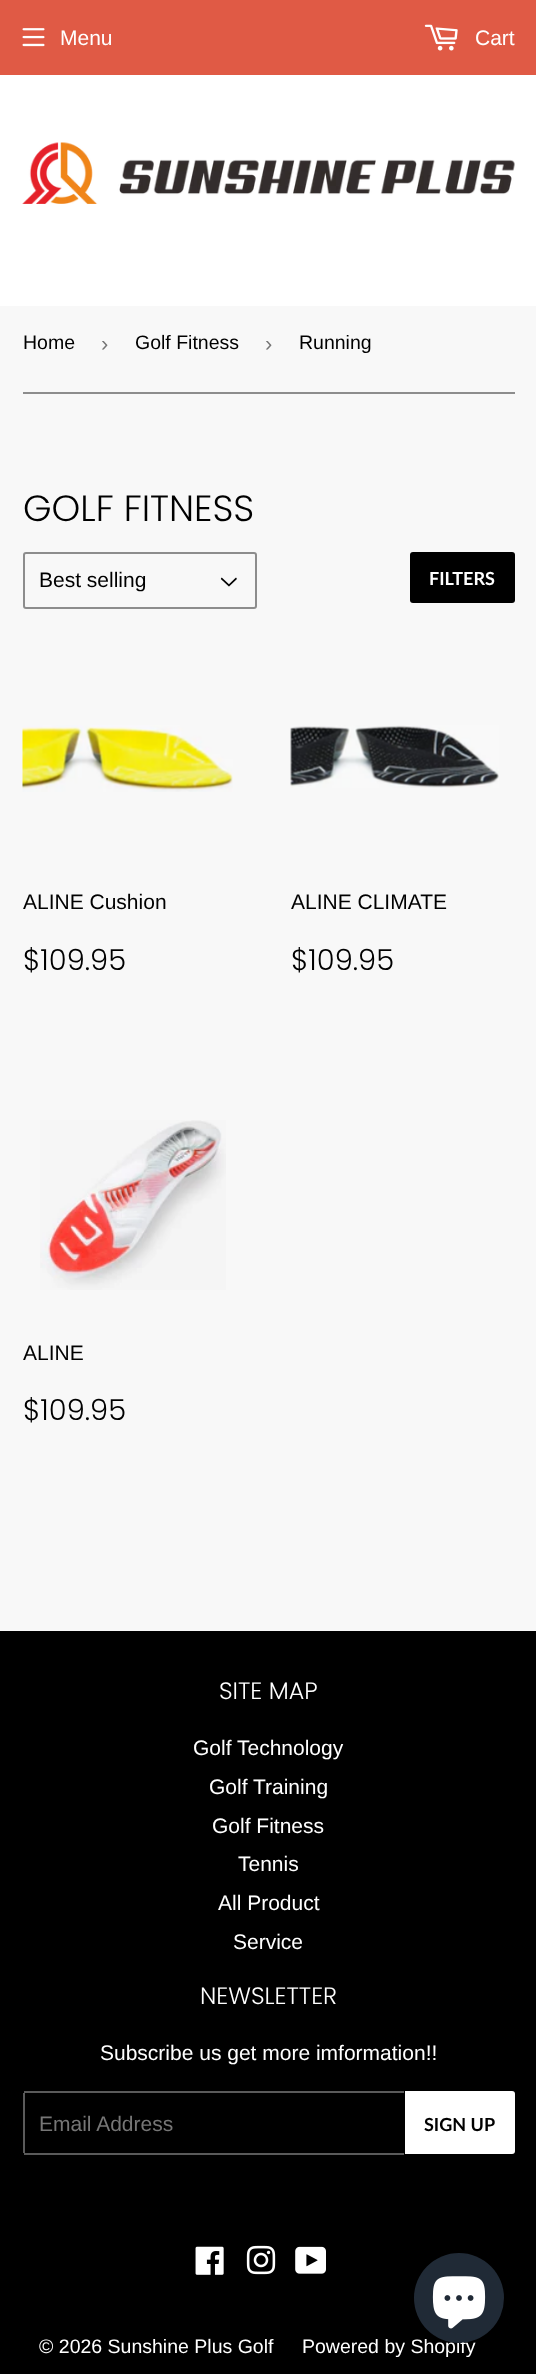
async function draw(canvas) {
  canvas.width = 536;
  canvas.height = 2374;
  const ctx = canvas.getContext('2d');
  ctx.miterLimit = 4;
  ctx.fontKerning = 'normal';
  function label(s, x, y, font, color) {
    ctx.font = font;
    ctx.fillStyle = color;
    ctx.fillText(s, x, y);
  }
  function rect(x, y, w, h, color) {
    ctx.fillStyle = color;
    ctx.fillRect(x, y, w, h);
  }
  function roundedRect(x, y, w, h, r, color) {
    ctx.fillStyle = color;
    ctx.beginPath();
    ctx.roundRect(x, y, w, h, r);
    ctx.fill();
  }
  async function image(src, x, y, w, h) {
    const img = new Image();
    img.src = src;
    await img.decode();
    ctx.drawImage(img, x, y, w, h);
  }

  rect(0, 0, 536, 2374, '#f8f8f8');
  rect(0, 0, 536, 75, '#e05a45');
  await image('assets/img1.png', 22, 28, 23, 19);
  label('Menu', 60, 45, '21px Arimo', '#fff');
  await image('assets/img2.png', 424, 24, 34, 27);
  label('Cart', 475, 45, '21px Arimo', '#fff');
  rect(0, 75, 536, 231, '#fff');
  await image('assets/img3.png', 22, 142, 493, 62);
  rect(23, 392, 492, 2, '#8d8d8d');
  label('Home', 23, 349, '19.5px Arimo', '#000');
  label('›', 101, 351, '22px Liberation Sans', '#767676');
  label('Golf Fitness', 135, 349, '19.5px Arimo', '#000');
  label('›', 265, 351, '22px Liberation Sans', '#767676');
  label('Running', 299, 349, '19.5px Arimo', '#000');
  label('GOLF FITNESS', 23, 521, '300 36.5px Poppins', '#000');
  await image('assets/img4.png', 220, 577, 17, 10);
  ctx.beginPath();
  ctx.roundRect(24, 553, 232, 55, 2);
  ctx.strokeStyle = '#8d8d8d';
  ctx.lineWidth = 2;
  ctx.stroke();
  label('Best selling', 39, 587, '21px Arimo', '#000');
  roundedRect(410, 552, 105, 51, 3, '#000');
  label('FILTERS', 429, 585, 'bold 18px Lato', '#fff');
  await image('assets/img5.png', 22, 725, 211, 67);
  label('ALINE Cushion', 23, 909, '21px Arimo', '#000');
  label('$109.95', 23, 970, '300 29px Poppins', '#000');
  await image('assets/img6.png', 290, 725, 209, 63);
  label('ALINE CLIMATE', 291, 909, '21px Arimo', '#000');
  label('$109.95', 291, 970, '300 29px Poppins', '#000');
  await image('assets/img7.png', 40, 1120, 186, 170);
  label('ALINE', 23, 1360, '21px Arimo', '#000');
  label('$109.95', 23, 1420, '300 29px Poppins', '#000');
  rect(0, 1631, 536, 743, '#000');
  label('SITE MAP', 219, 1699, '300 23.75px Poppins', '#fff');
  label('Golf Technology', 193, 1755, '21px Arimo', '#fff');
  label('Golf Training', 209, 1794, '21px Arimo', '#fff');
  label('Golf Fitness', 212, 1833, '21px Arimo', '#fff');
  label('Tennis', 238, 1871, '21px Arimo', '#fff');
  label('All Product', 218, 1910, '21px Arimo', '#fff');
  label('Service', 233, 1949, '21px Arimo', '#fff');
  label('NEWSLETTER', 200, 2004, '300 23.75px Poppins', '#fff');
  label('Subscribe us get more imformation!!', 100, 2060, '21px Arimo', '#fff');
  rect(24, 2091, 380, 2, '#5a5a5a');
  rect(24, 2153, 380, 2, '#5a5a5a');
  rect(23, 2093, 2, 60, '#5a5a5a');
  label('Email Address', 39, 2131, '21px Arimo', '#767676');
  ctx.fillStyle = '#fff';
  ctx.beginPath();
  ctx.roundRect(405, 2091, 110, 63, [0, 3, 3, 0]);
  ctx.fill();
  label('SIGN UP', 424, 2131, 'bold 18px Lato', '#000');
  await image('assets/img8.png', 195, 2246, 29, 29);
  await image('assets/img9.png', 246, 2245, 30, 30);
  await image('assets/img10.png', 295, 2246, 31, 28);
  label('© 2026 Sunshine Plus Golf', 39, 2353, '19.5px Arimo', '#fff');
  label('Powered by Shopify', 302, 2353, '19.5px Arimo', '#fff');
  ctx.fillStyle = '#202a36';
  ctx.beginPath();
  ctx.arc(459, 2298, 45, 0, 2 * Math.PI);
  ctx.fill();
  await image('assets/img11.png', 432, 2276, 54, 53);
}

draw(document.querySelector('canvas'));
